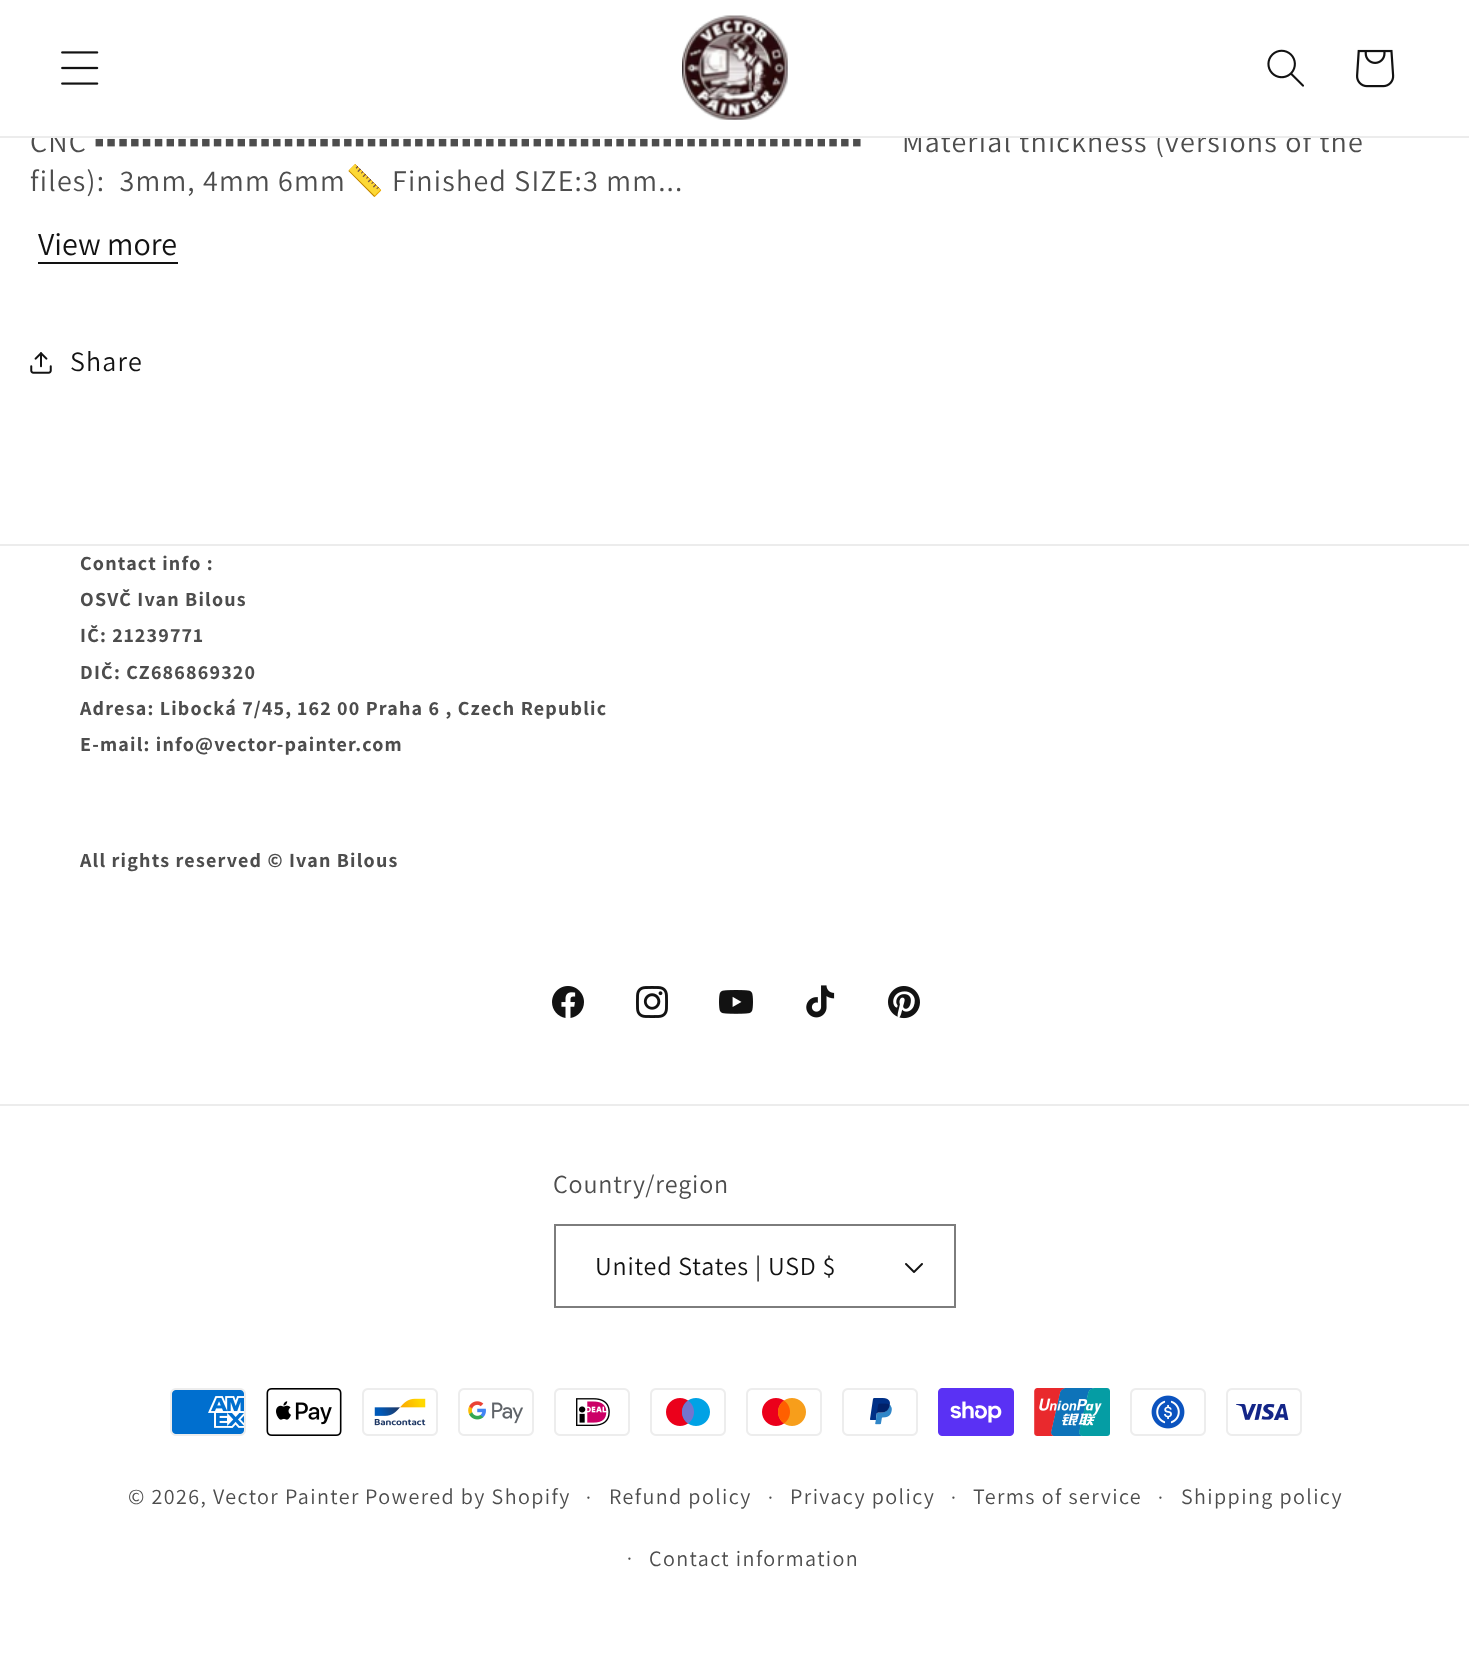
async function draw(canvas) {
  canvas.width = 1469;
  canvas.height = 1666;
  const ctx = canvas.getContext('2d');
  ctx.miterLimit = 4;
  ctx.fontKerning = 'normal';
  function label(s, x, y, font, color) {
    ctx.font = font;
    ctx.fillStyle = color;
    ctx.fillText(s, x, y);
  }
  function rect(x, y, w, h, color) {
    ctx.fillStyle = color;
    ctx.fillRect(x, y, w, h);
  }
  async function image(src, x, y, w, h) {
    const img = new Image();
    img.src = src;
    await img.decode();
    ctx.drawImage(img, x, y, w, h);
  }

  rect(0, 0, 1469, 1666, '#fff');
  ctx.letterSpacing = '1.2px';
  label('CNC', 30, 152, '30px Assistant', '#4d4d4d');
  label('Material thickness (versions of the', 902, 152, '30px Assistant', '#4d4d4d');
  rect(33, 130, 1303, 6, '#fff');
  rect(0, 136, 1469, 2, '#ececec');
  await image('assets/img1.png', 61, 51, 38, 34);
  await image('assets/img2.png', 682, 15, 106, 105);
  await image('assets/img3.png', 1267, 49, 37, 38);
  await image('assets/img4.png', 1356, 49, 39, 39);
  label('▪▪▪▪▪▪▪▪▪▪▪▪▪▪▪▪▪▪▪▪▪▪▪▪▪▪▪▪▪▪▪▪▪▪▪▪▪▪▪▪▪▪▪▪▪▪▪▪▪▪▪▪▪▪▪▪▪▪▪▪▪▪▪▪▪', 94, 152, '30px Liberation Sans', '#4d4d4d');
  label('files):  3mm, 4mm 6mm', 30, 191, '30px Assistant', '#4d4d4d');
  label('📏', 346, 191, '30px Noto Color Emoji', '#4d4d4d');
  label('Finished SIZE:3 mm...', 392, 191, '30px Assistant', '#4d4d4d');
  ctx.letterSpacing = '0px';
  label('View more', 38, 255, '32px Assistant', '#121212');
  rect(38, 262, 140, 2, '#121212');
  await image('assets/img5.png', 30, 352, 22, 22);
  ctx.letterSpacing = '1.2px';
  label('Share', 70, 371, '28px Assistant', '#121212');
  rect(0, 544, 1469, 2, '#ececec');
  label('Contact info :', 80, 570, 'bold 20.1px Assistant', '#4d4d4d');
  label('OSVČ Ivan Bilous', 80, 606, 'bold 20.1px Assistant', '#4d4d4d');
  label('IČ: 21239771', 80, 642, 'bold 20.1px Assistant', '#4d4d4d');
  label('DIČ: CZ686869320', 80, 679, 'bold 20.1px Assistant', '#4d4d4d');
  label('Adresa: Libocká 7/45, 162 00 Praha 6 , Czech Republic', 80, 715, 'bold 20.1px Assistant', '#4d4d4d');
  label('E-mail: info@vector-painter.com', 80, 751, 'bold 20.1px Assistant', '#4d4d4d');
  label('All rights reserved © Ivan Bilous', 80, 867, 'bold 20.1px Assistant', '#4d4d4d');
  await image('assets/img6.png', 552, 986, 32, 32);
  await image('assets/img7.png', 636, 986, 32, 32);
  await image('assets/img8.png', 719, 990, 34, 24);
  await image('assets/img9.png', 806, 985, 29, 33);
  await image('assets/img10.png', 888, 986, 32, 33);
  rect(0, 1104, 1469, 2, '#ececec');
  ctx.letterSpacing = '0.8px';
  label('Country/region', 553, 1193, '26px Assistant', '#4d4d4d');
  await image('assets/img11.png', 905, 1263, 18, 10);
  ctx.strokeStyle = '#7d7d7d';
  ctx.lineWidth = 2;
  ctx.strokeRect(555, 1225, 400, 82);
  label('United States | USD $', 595, 1275, '26px Assistant', '#121212');
  await image('assets/img12.png', 170, 1388, 76, 48);
  await image('assets/img13.png', 266, 1388, 76, 48);
  await image('assets/img14.png', 362, 1388, 76, 48);
  await image('assets/img15.png', 458, 1388, 76, 48);
  await image('assets/img16.png', 554, 1388, 76, 48);
  await image('assets/img17.png', 650, 1388, 76, 48);
  await image('assets/img18.png', 746, 1388, 76, 48);
  await image('assets/img19.png', 842, 1388, 76, 48);
  await image('assets/img20.png', 938, 1388, 76, 48);
  await image('assets/img21.png', 1034, 1388, 76, 48);
  await image('assets/img22.png', 1130, 1388, 76, 48);
  await image('assets/img23.png', 1226, 1388, 76, 48);
  ctx.letterSpacing = '1.4px';
  label('© 2026, Vector Painter', 128, 1504, '22px Assistant', '#4d4d4d');
  label('Powered by Shopify', 365, 1504, '22px Assistant', '#4d4d4d');
  label('·', 586, 1504, '20px Assistant', '#4d4d4d');
  label('Refund policy', 609, 1504, '22px Assistant', '#4d4d4d');
  label('·', 768, 1504, '20px Assistant', '#4d4d4d');
  label('Privacy policy', 790, 1504, '22px Assistant', '#4d4d4d');
  label('·', 951, 1504, '20px Assistant', '#4d4d4d');
  label('Terms of service', 973, 1504, '22px Assistant', '#4d4d4d');
  label('·', 1158, 1504, '20px Assistant', '#4d4d4d');
  label('Shipping policy', 1181, 1504, '22px Assistant', '#4d4d4d');
  label('·', 627, 1565, '20px Assistant', '#4d4d4d');
  label('Contact information', 649, 1566, '22px Assistant', '#4d4d4d');
}

draw(document.querySelector('canvas'));
